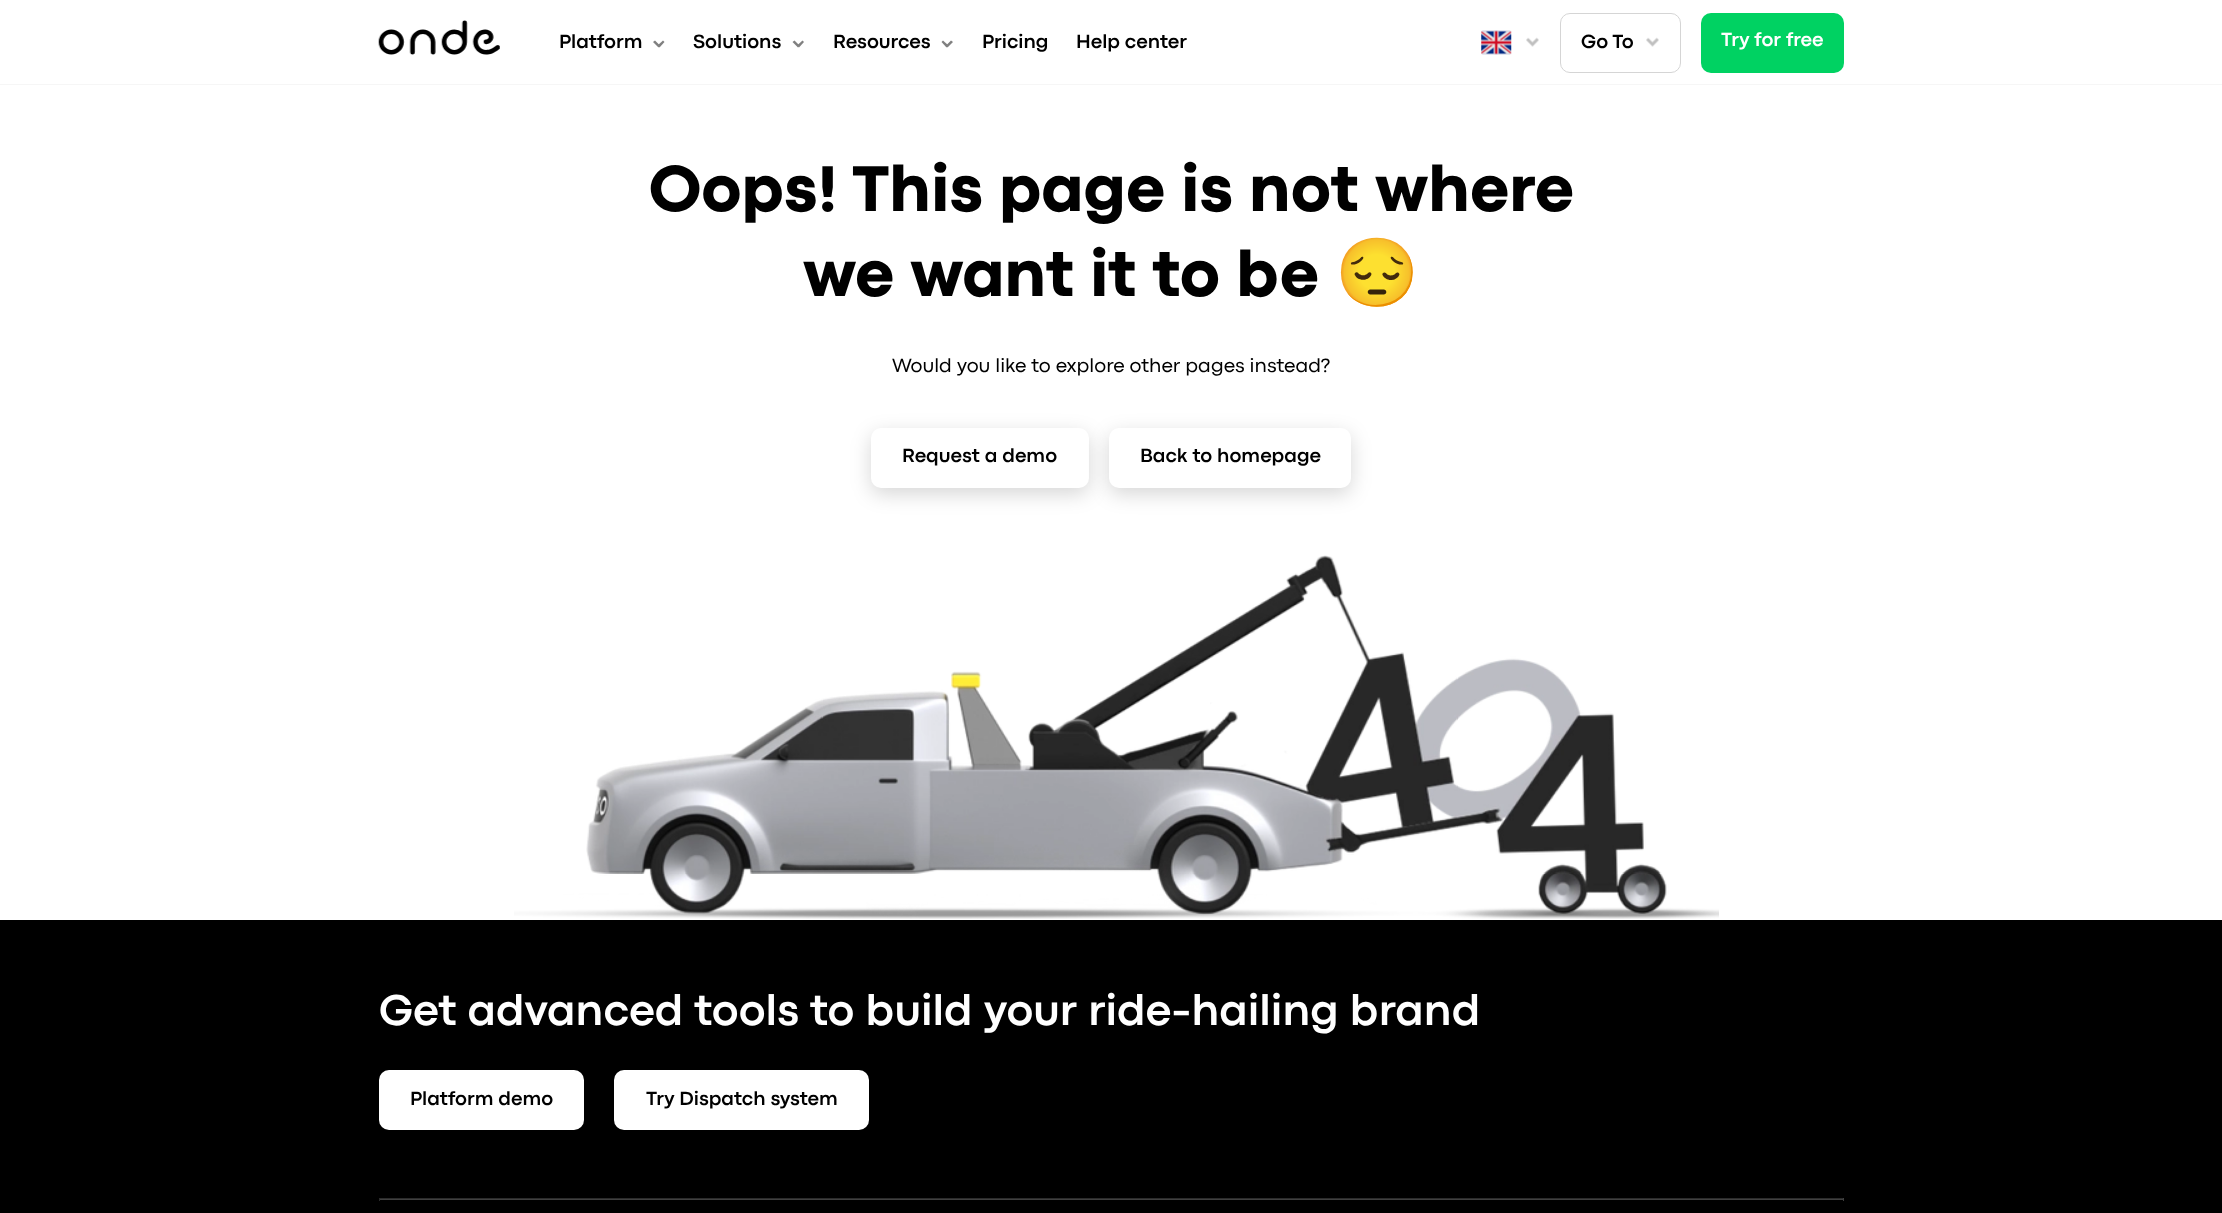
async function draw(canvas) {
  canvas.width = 2222;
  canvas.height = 1213;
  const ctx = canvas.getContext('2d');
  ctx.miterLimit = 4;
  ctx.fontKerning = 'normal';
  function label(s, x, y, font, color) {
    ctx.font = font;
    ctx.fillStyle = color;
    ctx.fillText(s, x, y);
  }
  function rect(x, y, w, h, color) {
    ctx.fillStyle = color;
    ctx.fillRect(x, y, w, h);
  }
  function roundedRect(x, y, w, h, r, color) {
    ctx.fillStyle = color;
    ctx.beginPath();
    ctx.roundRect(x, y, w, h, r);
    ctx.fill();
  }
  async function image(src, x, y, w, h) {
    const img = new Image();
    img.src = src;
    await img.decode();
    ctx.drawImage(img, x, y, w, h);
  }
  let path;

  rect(0, 0, 2222, 1213, '#fff');
  rect(0, 84, 2222, 1, '#f6f6f6');
  await image('assets/img1.png', 378, 20, 122, 35);
  label('Platform', 559, 48, 'bold 20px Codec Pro', '#000');
  ctx.fillStyle = '#808080';
  path = new Path2D('M655 40.5L660 45.5L658.5 47.5L653 42Z');
  ctx.fill(path);
  path = new Path2D('M657.5 45.5L663 40.5L664.5 42L659.5 47.5Z');
  ctx.fill(path);
  label('Solutions', 693, 48, 'bold 20px Codec Pro', '#000');
  ctx.fillStyle = '#808080';
  path = new Path2D('M794.5 40.5L799.5 45.5L798 47.5L792.5 42Z');
  ctx.fill(path);
  path = new Path2D('M797 45.5L802.5 40.5L804 42L799 47.5Z');
  ctx.fill(path);
  label('Resources', 833, 48, 'bold 20px Codec Pro', '#000');
  ctx.fillStyle = '#808080';
  path = new Path2D('M943 40.5L948.5 45.5L946.5 47.5L941.5 42Z');
  ctx.fill(path);
  path = new Path2D('M946 45.5L951 40.5L953 42L947.5 47.5Z');
  ctx.fill(path);
  label('Pricing', 982, 48, 'bold 20px Codec Pro', '#000');
  label('Help center', 1076, 48, 'bold 20px Codec Pro', '#000');
  await image('assets/img2.png', 1481, 30, 31, 25);
  await image('assets/img3.png', 1526, 37, 13, 10);
  ctx.beginPath();
  ctx.roundRect(1560.5, 13.5, 120, 59, 9.5);
  ctx.strokeStyle = '#d5d5d5';
  ctx.stroke();
  label('Go To', 1581, 48, 'bold 20px Codec Pro', '#000');
  await image('assets/img3.png', 1646, 37, 13, 10);
  roundedRect(1701, 13, 143, 60, 10, '#00d262');
  label('Try for free', 1721, 46, 'bold 20px Codec Pro', '#fff');
  label('Oops! This page is not where', 649, 211, '800 67.5px Codec Pro', '#000');
  label('we want it to be', 803, 296, '800 67.5px Codec Pro', '#000');
  label('😔', 1335, 296, 'bold 67.5px Noto Color Emoji', '#000');
  label('Would you like to explore other pages instead?', 892, 372, '20px Codec Pro', '#000');
  ctx.fillStyle = '#00000029';
  ctx.filter = 'blur(10px)';
  ctx.beginPath();
  ctx.roundRect(871, 434, 218, 60, 10);
  ctx.fill();
  ctx.filter = 'none';
  roundedRect(871, 428, 218, 60, 10, '#fff');
  label('Request a demo', 902, 462, 'bold 20px Codec Pro', '#000');
  ctx.fillStyle = '#00000029';
  ctx.filter = 'blur(10px)';
  ctx.beginPath();
  ctx.roundRect(1109, 434, 242, 60, 10);
  ctx.fill();
  ctx.filter = 'none';
  roundedRect(1109, 428, 242, 60, 10, '#fff');
  label('Back to homepage', 1140, 462, 'bold 20px Codec Pro', '#000');
  await image('assets/img4.png', 514, 555, 1205, 364);
  rect(0, 920, 2222, 293, '#000');
  label('Get advanced tools to build your ride-hailing brand', 379, 1025, 'bold 45px Codec Pro', '#fff');
  roundedRect(379, 1070, 205, 60, 10, '#fff');
  label('Platform demo', 410, 1105, 'bold 20px Codec Pro', '#000');
  roundedRect(614, 1070, 255, 60, 10, '#fff');
  label('Try Dispatch system', 646, 1105, 'bold 20px Codec Pro', '#000');
  rect(379, 1198, 1465, 1, '#2b2b2b');
  rect(1843, 1198, 1, 3, '#404040');
  rect(379, 1199, 1465, 1, '#404040');
  rect(379, 1198, 1, 3, '#2b2b2b');
}

draw(document.querySelector('canvas'));
